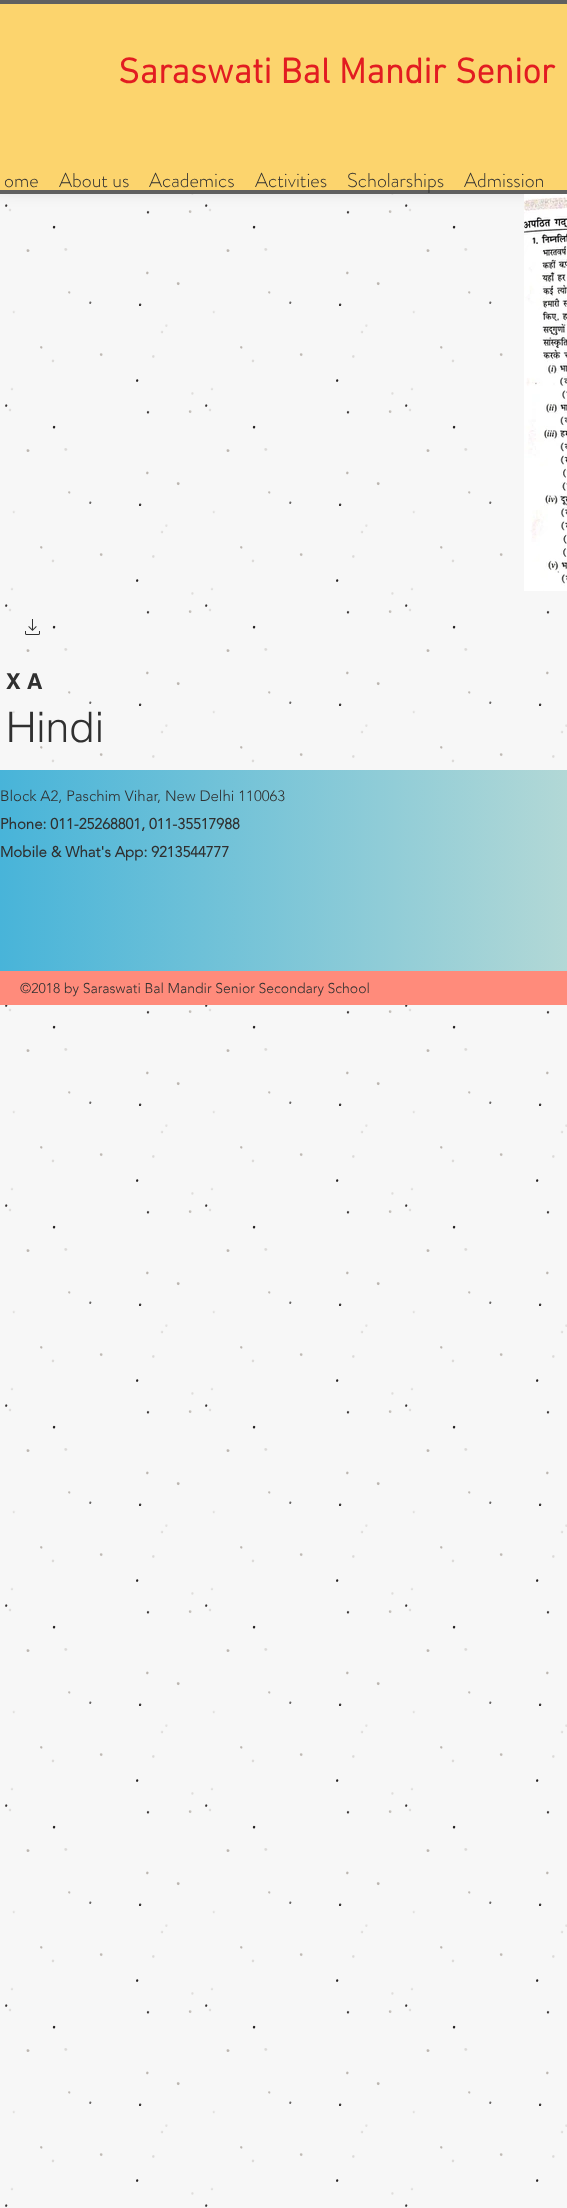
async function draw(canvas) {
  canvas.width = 567;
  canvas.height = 2208;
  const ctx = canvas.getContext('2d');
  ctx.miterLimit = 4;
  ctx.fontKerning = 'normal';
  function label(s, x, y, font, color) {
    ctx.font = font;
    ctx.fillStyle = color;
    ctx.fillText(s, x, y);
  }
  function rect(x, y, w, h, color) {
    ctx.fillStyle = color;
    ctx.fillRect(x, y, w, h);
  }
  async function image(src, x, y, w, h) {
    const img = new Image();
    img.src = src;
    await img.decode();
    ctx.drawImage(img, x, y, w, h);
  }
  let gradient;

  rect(0, 0, 567, 2208, '#f7f7f7');
  await image('assets/img3.png', 5, 194, 562, 2013);
  ctx.fillStyle = '#000000b3';
  ctx.filter = 'blur(14px)';
  ctx.beginPath();
  ctx.rect(-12, -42, 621, 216);
  ctx.fill();
  ctx.filter = 'none';
  rect(0, 4, 567, 186, '#fcd46d');
  rect(0, 0, 567, 4, '#606060');
  rect(0, 190, 567, 4, '#606060');
  label('Saraswati Bal Mandir Senior', 118, 83, 'bold 36px "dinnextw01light"', '#e21c21');
  label('ome', 4, 187, '300 20px "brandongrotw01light"', '#303030');
  label('About us', 59, 187, '300 20px "brandongrotw01light"', '#303030');
  label('Academics', 149, 187, '300 20px "brandongrotw01light"', '#303030');
  label('Activities', 255, 187, '300 20px "brandongrotw01light"', '#303030');
  label('Scholarships', 347, 187, '300 20px "brandongrotw01light"', '#303030');
  label('Admission', 464, 187, '300 20px "brandongrotw01light"', '#303030');
  await image('assets/img1.png', 524, 194, 43, 397);
  await image('assets/img2.png', 25, 619, 15, 16);
  label('X A', 6, 689, 'bold 22px helvetica', '#303030');
  label('Hindi', 6, 742, '300 42px helvetica', '#303030');
  gradient = ctx.createLinearGradient(0, 878, 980, 878);
  gradient.addColorStop(0, '#48b4d9');
  gradient.addColorStop(1, '#fff2d4');
  ctx.fillStyle = gradient;
  ctx.fillRect(0, 770, 567, 201);
  label('Block A2, Paschim Vihar, New Delhi 110063', 0, 801, '300 15px "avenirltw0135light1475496"', '#303030');
  label('Phone: 011-25268801, 011-35517988', 0, 829, 'bold 15px "avenirltw0135light1475496"', '#303030');
  label('Mobile & What\'s App: 9213544777', 0, 857, 'bold 15px "avenirltw0135light1475496"', '#303030');
  rect(0, 971, 567, 34, '#ff8b7b');
  label('©2018 by Saraswati Bal Mandir Senior Secondary School', 20, 993, '300 14px "avenirltw0135light1475496"', '#303030');
}

draw(document.querySelector('canvas'));
